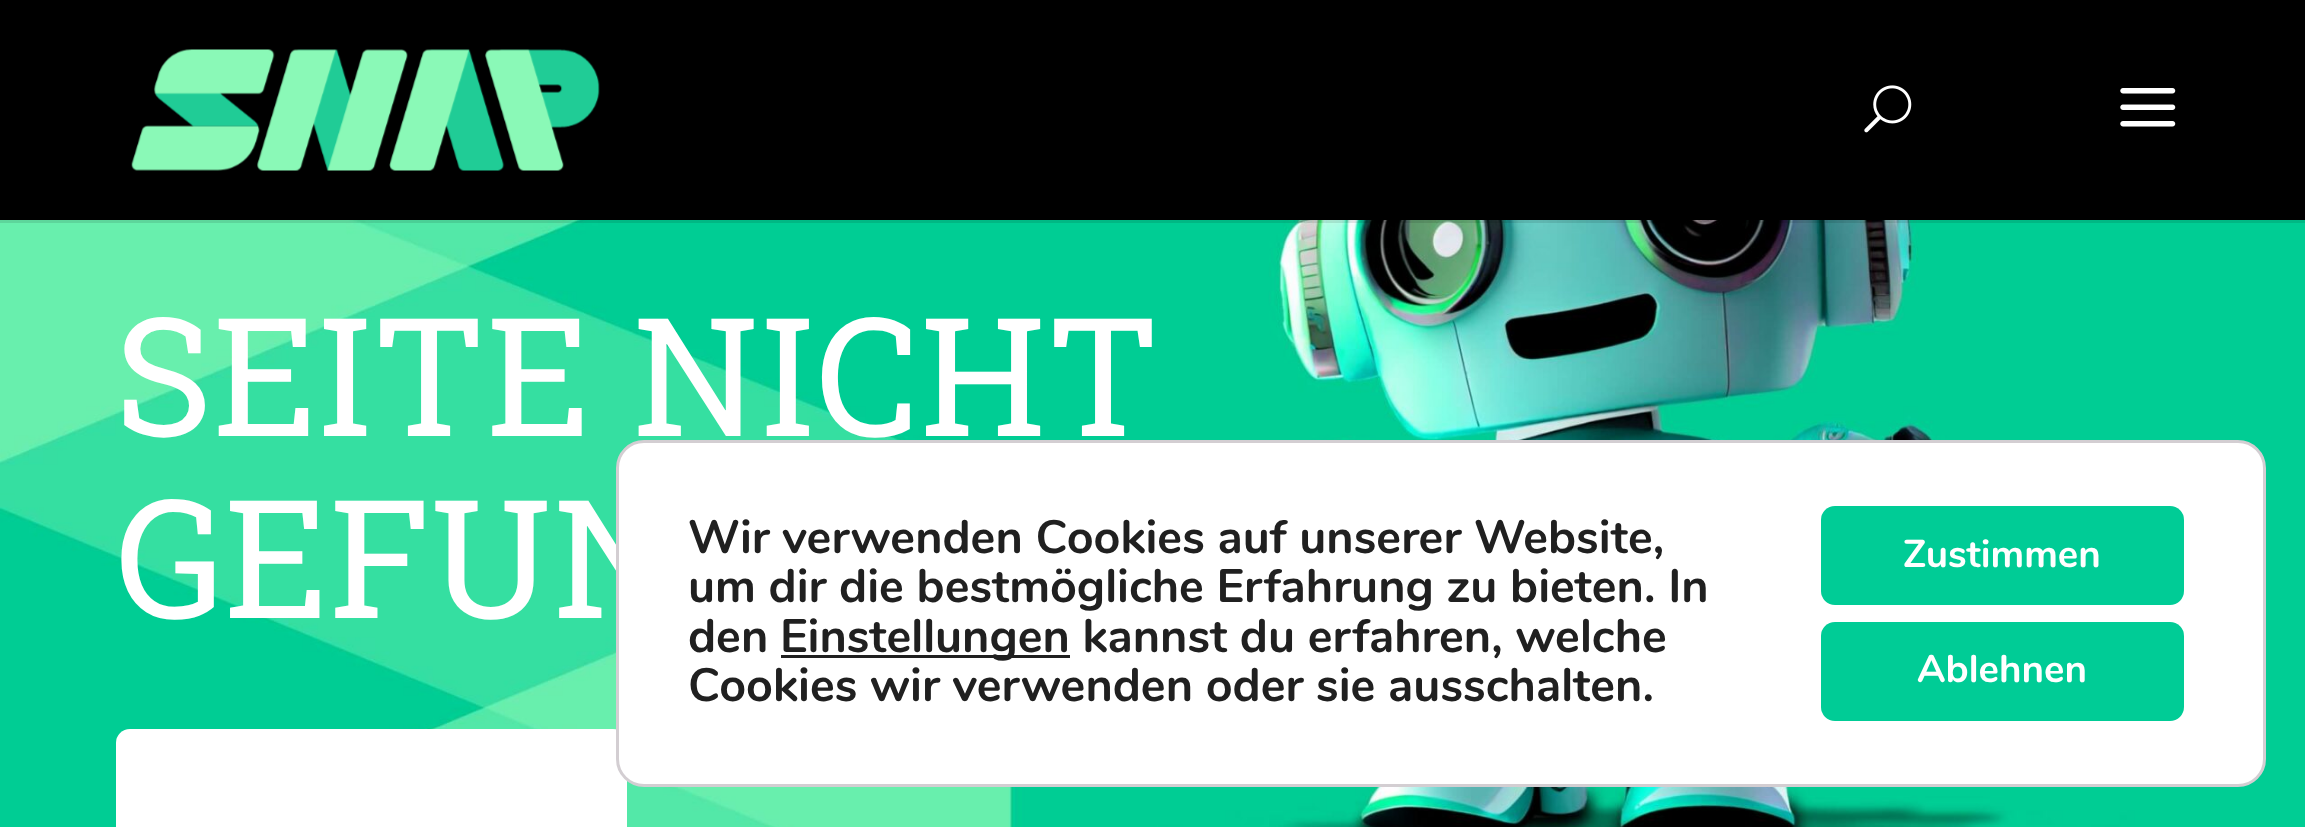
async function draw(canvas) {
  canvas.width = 2305;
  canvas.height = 827;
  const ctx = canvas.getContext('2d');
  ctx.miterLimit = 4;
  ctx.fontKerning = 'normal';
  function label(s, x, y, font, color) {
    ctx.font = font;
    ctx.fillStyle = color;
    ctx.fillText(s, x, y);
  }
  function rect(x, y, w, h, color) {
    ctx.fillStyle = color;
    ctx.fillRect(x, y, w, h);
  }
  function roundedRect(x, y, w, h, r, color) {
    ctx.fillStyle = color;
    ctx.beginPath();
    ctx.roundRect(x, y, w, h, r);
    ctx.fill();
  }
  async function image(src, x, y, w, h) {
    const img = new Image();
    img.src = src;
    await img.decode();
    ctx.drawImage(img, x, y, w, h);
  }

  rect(0, 0, 2305, 827, '#fff');
  await image('assets/img4.png', 0, 220, 2305, 607);
  rect(0, 220, 2305, 3, '#0000001a');
  rect(0, 0, 2305, 220, '#000');
  await image('assets/img1.png', 131, 49, 469, 122);
  await image('assets/img2.png', 1864, 85, 48, 48);
  await image('assets/img3.png', 2120, 88, 56, 39);
  label('SEITE NICHT', 115, 436, '165px Roboto Slab', '#fff');
  label('GEFUN', 115, 618, '165px Roboto Slab', '#fff');
  roundedRect(116, 729, 511, 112, 14, '#fff');
  ctx.beginPath();
  ctx.roundRect(617.5, 441.5, 1647, 344, 26.5);
  ctx.fill();
  ctx.strokeStyle = '#d3ced2';
  ctx.lineWidth = 3;
  ctx.stroke();
  label('Wir verwenden Cookies auf unserer Website,', 688, 553, 'bold 46.75px Nunito', '#202020');
  label('um dir die bestmögliche Erfahrung zu bieten. In', 688, 602, 'bold 46.75px Nunito', '#202020');
  label('den', 688, 652, 'bold 46.75px Nunito', '#202020');
  rect(781, 655, 289, 3, '#202020');
  label('Einstellungen kannst du erfahren, welche', 780, 652, 'bold 46.75px Nunito', '#202020');
  label('Cookies wir verwenden oder sie ausschalten.', 688, 701, 'bold 46.75px Nunito', '#202020');
  roundedRect(1821, 506, 363, 99, 14, '#00cc96');
  label('Zustimmen', 1903, 567, 'bold 38.5px Nunito', '#fff');
  roundedRect(1821, 622, 363, 99, 14, '#00cc96');
  label('Ablehnen', 1917, 682, 'bold 38.5px Nunito', '#fff');
}

draw(document.querySelector('canvas'));
